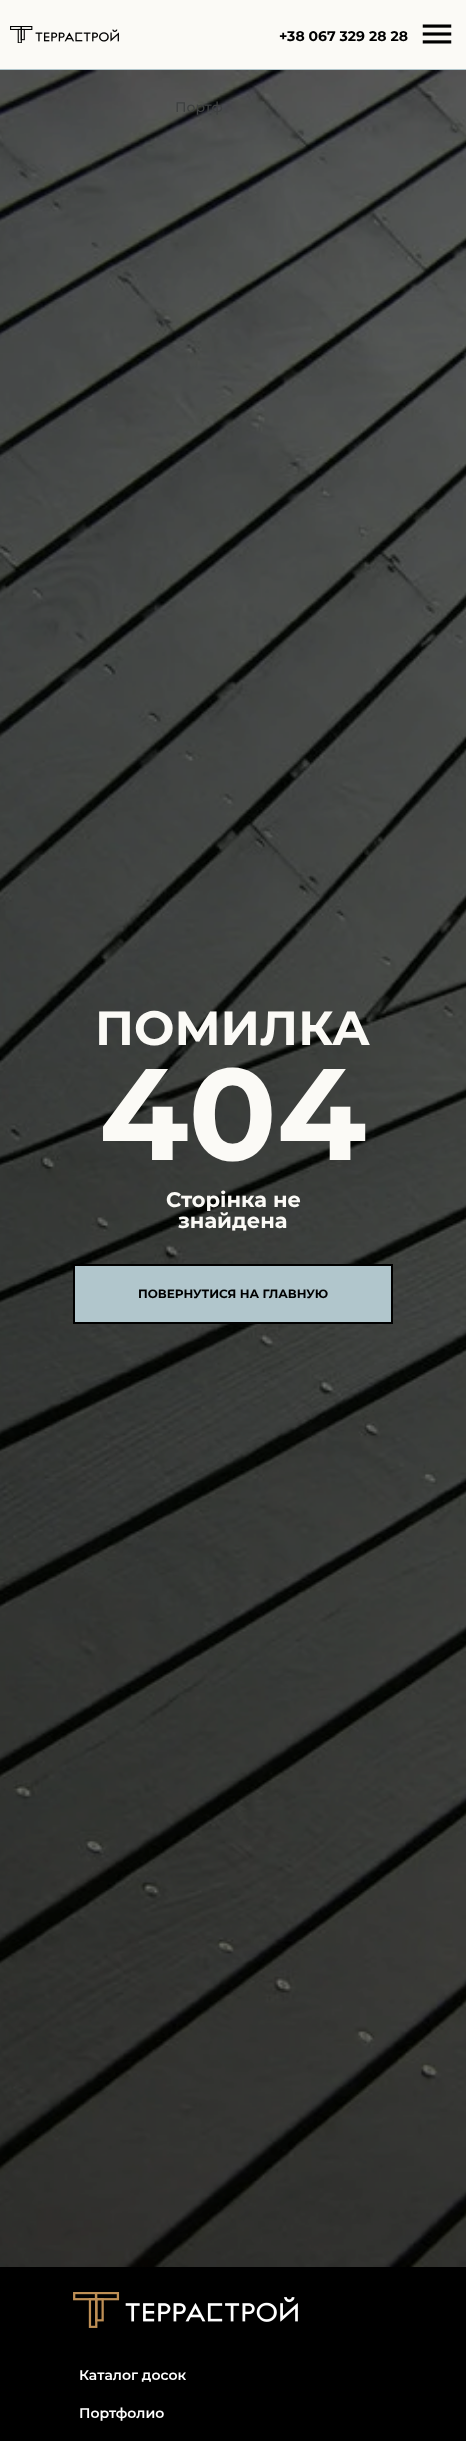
async function draw(canvas) {
  canvas.width = 466;
  canvas.height = 2441;
  const ctx = canvas.getContext('2d');
  ctx.miterLimit = 4;
  ctx.fontKerning = 'normal';
  function label(s, x, y, font, color) {
    ctx.font = font;
    ctx.fillStyle = color;
    ctx.fillText(s, x, y);
  }
  function rect(x, y, w, h, color) {
    ctx.fillStyle = color;
    ctx.fillRect(x, y, w, h);
  }
  async function image(src, x, y, w, h) {
    const img = new Image();
    img.src = src;
    await img.decode();
    ctx.drawImage(img, x, y, w, h);
  }

  rect(0, 0, 466, 2441, '#000');
  rect(0, 69, 466, 1, '#b1c6cc');
  rect(0, 0, 466, 69, '#fbfaf6');
  await image('assets/img1.png', 10, 26, 109, 17);
  label('+38 067 329 28 28', 279, 41, 'bold 14px Montserrat', '#000');
  await image('assets/img2.png', 422, 24, 30, 20);
  await image('assets/img3.png', 0, 70, 466, 2197);
  label('Портф', 175, 112, '500 14px Montserrat', '#3e4040');
  label('ПОМИЛКА', 95, 1045, 'bold 48px Montserrat', '#fbfaf6');
  label('404', 99, 1160, 'bold 130px Montserrat', '#fbfaf6');
  label('Сторінка не', 166, 1207, 'bold 21px Montserrat', '#fbfaf6');
  label('знайдена', 178, 1228, 'bold 21px Montserrat', '#fbfaf6');
  ctx.fillStyle = '#b1c6cc';
  ctx.beginPath();
  ctx.rect(74, 1265, 318, 58);
  ctx.fill();
  ctx.strokeStyle = '#000';
  ctx.lineWidth = 2;
  ctx.stroke();
  label('ПОВЕРНУТИСЯ НА ГЛАВНУЮ', 138, 1298, 'bold 12px Montserrat', '#000');
  await image('assets/img4.png', 73, 2292, 225, 36);
  label('Каталог досок', 79, 2380, '600 14px Montserrat', '#fff');
  label('Портфолио', 79, 2418, '600 14px Montserrat', '#fff');
}

draw(document.querySelector('canvas'));
